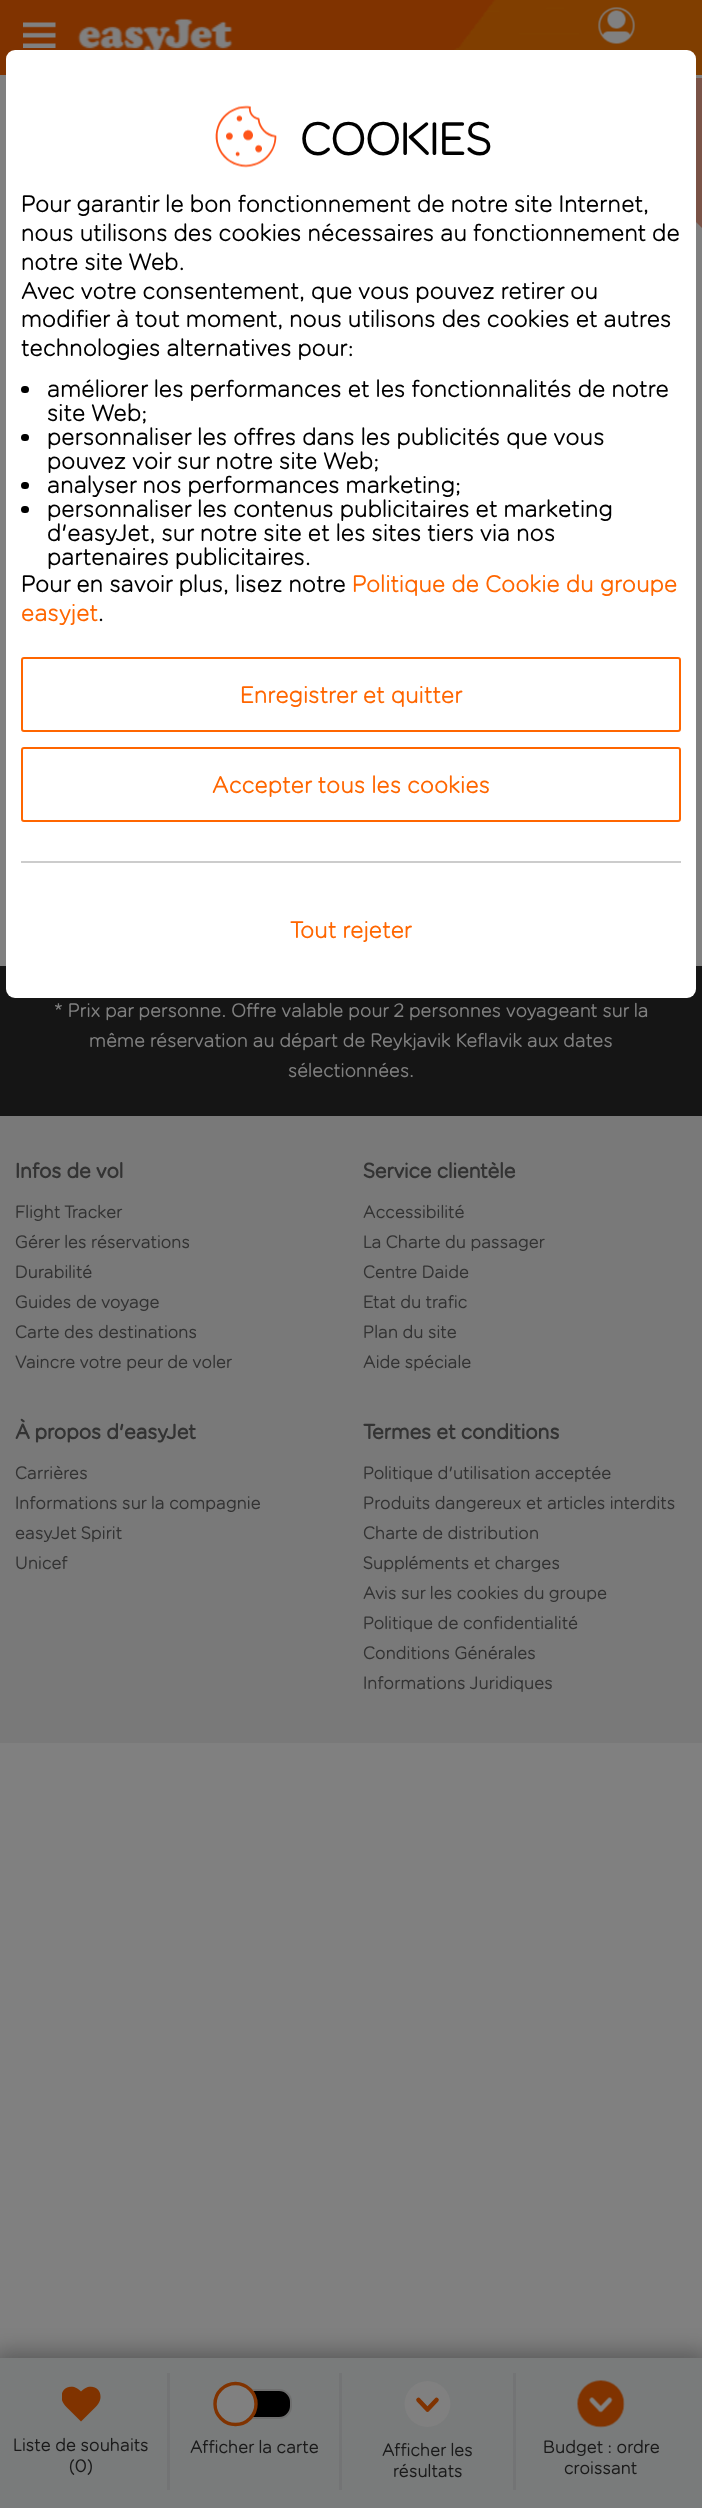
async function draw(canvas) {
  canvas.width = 702;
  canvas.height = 2508;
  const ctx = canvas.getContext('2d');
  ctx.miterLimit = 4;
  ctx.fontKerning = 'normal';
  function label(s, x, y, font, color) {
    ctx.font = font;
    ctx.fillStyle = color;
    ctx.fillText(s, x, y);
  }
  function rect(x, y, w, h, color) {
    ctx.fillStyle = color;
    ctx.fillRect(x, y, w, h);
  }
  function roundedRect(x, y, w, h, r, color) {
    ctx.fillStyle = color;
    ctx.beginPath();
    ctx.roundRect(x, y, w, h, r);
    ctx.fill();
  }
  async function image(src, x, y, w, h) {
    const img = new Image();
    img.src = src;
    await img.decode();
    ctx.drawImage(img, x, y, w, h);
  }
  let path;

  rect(0, 0, 702, 2508, '#808080');
  rect(0, 0, 436, 75, '#803300');
  await image('assets/img2.png', 436, 0, 266, 75);
  ctx.fillStyle = '#7a5347';
  path = new Path2D('M552 78H702V228Z');
  ctx.fill(path);
  rect(0, 966, 702, 150, '#151515');
  roundedRect(6, 50, 690, 948, 9, '#fff');
  await image('assets/img1.png', 215, 105, 62, 63);
  label('COOKIES', 300, 155, 'bold 45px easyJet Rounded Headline', '#000');
  label('Pour garantir le bon fonctionnement de notre site Internet,', 21, 212, '24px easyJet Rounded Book', '#000');
  label('nous utilisons des cookies nécessaires au fonctionnement de', 21, 241, '24px easyJet Rounded Book', '#000');
  label('notre site Web.', 21, 270, '24px easyJet Rounded Book', '#000');
  label('Avec votre consentement, que vous pouvez retirer ou', 21, 299, '24px easyJet Rounded Book', '#000');
  label('modifier à tout moment, nous utilisons des cookies et autres', 21, 327, '24px easyJet Rounded Book', '#000');
  label('technologies alternatives pour:', 21, 356, '24px easyJet Rounded Book', '#000');
  roundedRect(21, 386, 8, 7, 3.5, '#000');
  label('améliorer les performances et les fonctionnalités de notre', 47, 397, '24px easyJet Rounded Book', '#000');
  label('site Web;', 47, 421, '24px easyJet Rounded Book', '#000');
  roundedRect(21, 434, 8, 7, 3.5, '#000');
  label('personnaliser les offres dans les publicités que vous', 47, 445, '24px easyJet Rounded Book', '#000');
  label('pouvez voir sur notre site Web;', 47, 469, '24px easyJet Rounded Book', '#000');
  roundedRect(21, 482, 8, 7, 3.5, '#000');
  label('analyser nos performances marketing;', 47, 493, '24px easyJet Rounded Book', '#000');
  roundedRect(21, 506, 8, 7, 3.5, '#000');
  label('personnaliser les contenus publicitaires et marketing', 47, 517, '24px easyJet Rounded Book', '#000');
  label('d\'easyJet, sur notre site et les sites tiers via nos', 47, 541, '24px easyJet Rounded Book', '#000');
  label('partenaires publicitaires.', 47, 565, '24px easyJet Rounded Book', '#000');
  label('Pour en savoir plus, lisez notre', 21, 592, '24px easyJet Rounded Book', '#000');
  label('Politique de Cookie du groupe', 352, 592, '24px easyJet Rounded Book', '#f60');
  label('easyjet', 21, 621, '24px easyJet Rounded Book', '#f60');
  label('.', 98, 621, '24px easyJet Rounded Book', '#000');
  ctx.beginPath();
  ctx.roundRect(22, 658, 658, 73, 2);
  ctx.strokeStyle = '#f60';
  ctx.lineWidth = 2;
  ctx.stroke();
  label('Enregistrer et quitter', 240, 703, '24px easyJet Rounded Book', '#f60');
  ctx.beginPath();
  ctx.roundRect(22, 748, 658, 73, 2);
  ctx.stroke();
  label('Accepter tous les cookies', 212, 793, '24px easyJet Rounded Book', '#f60');
  rect(21, 861, 660, 2, '#ccc');
  label('Tout rejeter', 290, 938, '24px easyJet Rounded Book', '#f60');
  await image('assets/img3.png', 23, 22, 33, 26);
  await image('assets/img4.png', 77, 18, 156, 32);
  await image('assets/img5.png', 598, 7, 37, 37);
  label('* Prix par personne. Offre valable pour 2 personnes voyageant sur la', 54, 1017, '19.5px easyJet Rounded Book', '#808080');
  label('même réservation au départ de Reykjavik Keflavik aux dates', 89, 1047, '19.5px easyJet Rounded Book', '#808080');
  label('sélectionnées.', 288, 1077, '19.5px easyJet Rounded Book', '#808080');
  ctx.fillStyle = '#0000004d';
  ctx.filter = 'blur(11px)';
  ctx.beginPath();
  ctx.rect(-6, 2352, 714, 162);
  ctx.fill();
  ctx.filter = 'none';
  rect(0, 2358, 702, 150, '#797b7b');
  await image('assets/img6.png', 62, 2386, 39, 36);
  label('Liste de souhaits', 13, 2451, '18px easyJet Rounded Book', '#1a1a1a');
  label('(0)', 69, 2472, '18px easyJet Rounded Book', '#1a1a1a');
  rect(167, 2373, 3, 117, '#737475');
  ctx.fillStyle = '#000';
  ctx.beginPath();
  ctx.roundRect(215, 2390, 76, 28, 12);
  ctx.fill();
  ctx.strokeStyle = '#6e6e6e';
  ctx.stroke();
  ctx.fillStyle = '#808080';
  ctx.beginPath();
  ctx.arc(235.5, 2404, 20.5, 0, 2 * Math.PI);
  ctx.fill();
  ctx.strokeStyle = '#803300';
  ctx.lineWidth = 3.4;
  ctx.stroke();
  label('Afficher la carte', 190, 2453, '18px easyJet Rounded Book', '#1a1a1a');
  rect(339, 2373, 3, 117, '#737475');
  ctx.fillStyle = '#808080';
  ctx.beginPath();
  ctx.arc(427.5, 2404, 23, 0, 2 * Math.PI);
  ctx.fill();
  path = new Path2D('M418.5 2400L427.5 2409.5M436.5 2400L427.5 2409.5');
  ctx.lineWidth = 4.6;
  ctx.lineCap = 'round';
  ctx.stroke(path);
  label('Afficher les', 382, 2456, '18px easyJet Rounded Book', '#1a1a1a');
  label('résultats', 393, 2477, '18px easyJet Rounded Book', '#1a1a1a');
  rect(513, 2373, 3, 117, '#737475');
  await image('assets/img7.png', 577, 2380, 48, 48);
  label('Budget : ordre', 543, 2453, '18px easyJet Rounded Book', '#1a1a1a');
  label('croissant', 564, 2474, '18px easyJet Rounded Book', '#1a1a1a');
  rect(0, 1116, 702, 627, '#797979');
  label('Infos de vol', 15, 1178, 'bold 21px easyJet Rounded Book', '#333');
  label('Flight Tracker', 15, 1218, '18px easyJet Rounded Book', '#333');
  label('Gérer les réservations', 15, 1248, '18px easyJet Rounded Book', '#333');
  label('Durabilité', 15, 1278, '18px easyJet Rounded Book', '#333');
  label('Guides de voyage', 15, 1308, '18px easyJet Rounded Book', '#333');
  label('Carte des destinations', 15, 1338, '18px easyJet Rounded Book', '#333');
  label('Vaincre votre peur de voler', 15, 1368, '18px easyJet Rounded Book', '#333');
  label('Service clientèle', 363, 1178, 'bold 21px easyJet Rounded Book', '#333');
  label('Accessibilité', 363, 1218, '18px easyJet Rounded Book', '#333');
  label('La Charte du passager', 363, 1248, '18px easyJet Rounded Book', '#333');
  label('Centre Daide', 363, 1278, '18px easyJet Rounded Book', '#333');
  label('Etat du trafic', 363, 1308, '18px easyJet Rounded Book', '#333');
  label('Plan du site', 363, 1338, '18px easyJet Rounded Book', '#333');
  label('Aide spéciale', 363, 1368, '18px easyJet Rounded Book', '#333');
  label('À propos d\'easyJet', 15, 1439, 'bold 21px easyJet Rounded Book', '#333');
  label('Carrières', 15, 1479, '18px easyJet Rounded Book', '#333');
  label('Informations sur la compagnie', 15, 1509, '18px easyJet Rounded Book', '#333');
  label('easyJet Spirit', 15, 1539, '18px easyJet Rounded Book', '#333');
  label('Unicef', 15, 1569, '18px easyJet Rounded Book', '#333');
  label('Termes et conditions', 363, 1439, 'bold 21px easyJet Rounded Book', '#333');
  label('Politique d\'utilisation acceptée', 363, 1479, '18px easyJet Rounded Book', '#333');
  label('Produits dangereux et articles interdits', 363, 1509, '18px easyJet Rounded Book', '#333');
  label('Charte de distribution', 363, 1539, '18px easyJet Rounded Book', '#333');
  label('Suppléments et charges', 363, 1569, '18px easyJet Rounded Book', '#333');
  label('Avis sur les cookies du groupe', 363, 1599, '18px easyJet Rounded Book', '#333');
  label('Politique de confidentialité', 363, 1629, '18px easyJet Rounded Book', '#333');
  label('Conditions Générales', 363, 1659, '18px easyJet Rounded Book', '#333');
  label('Informations Juridiques', 363, 1689, '18px easyJet Rounded Book', '#333');
}

draw(document.querySelector('canvas'));
